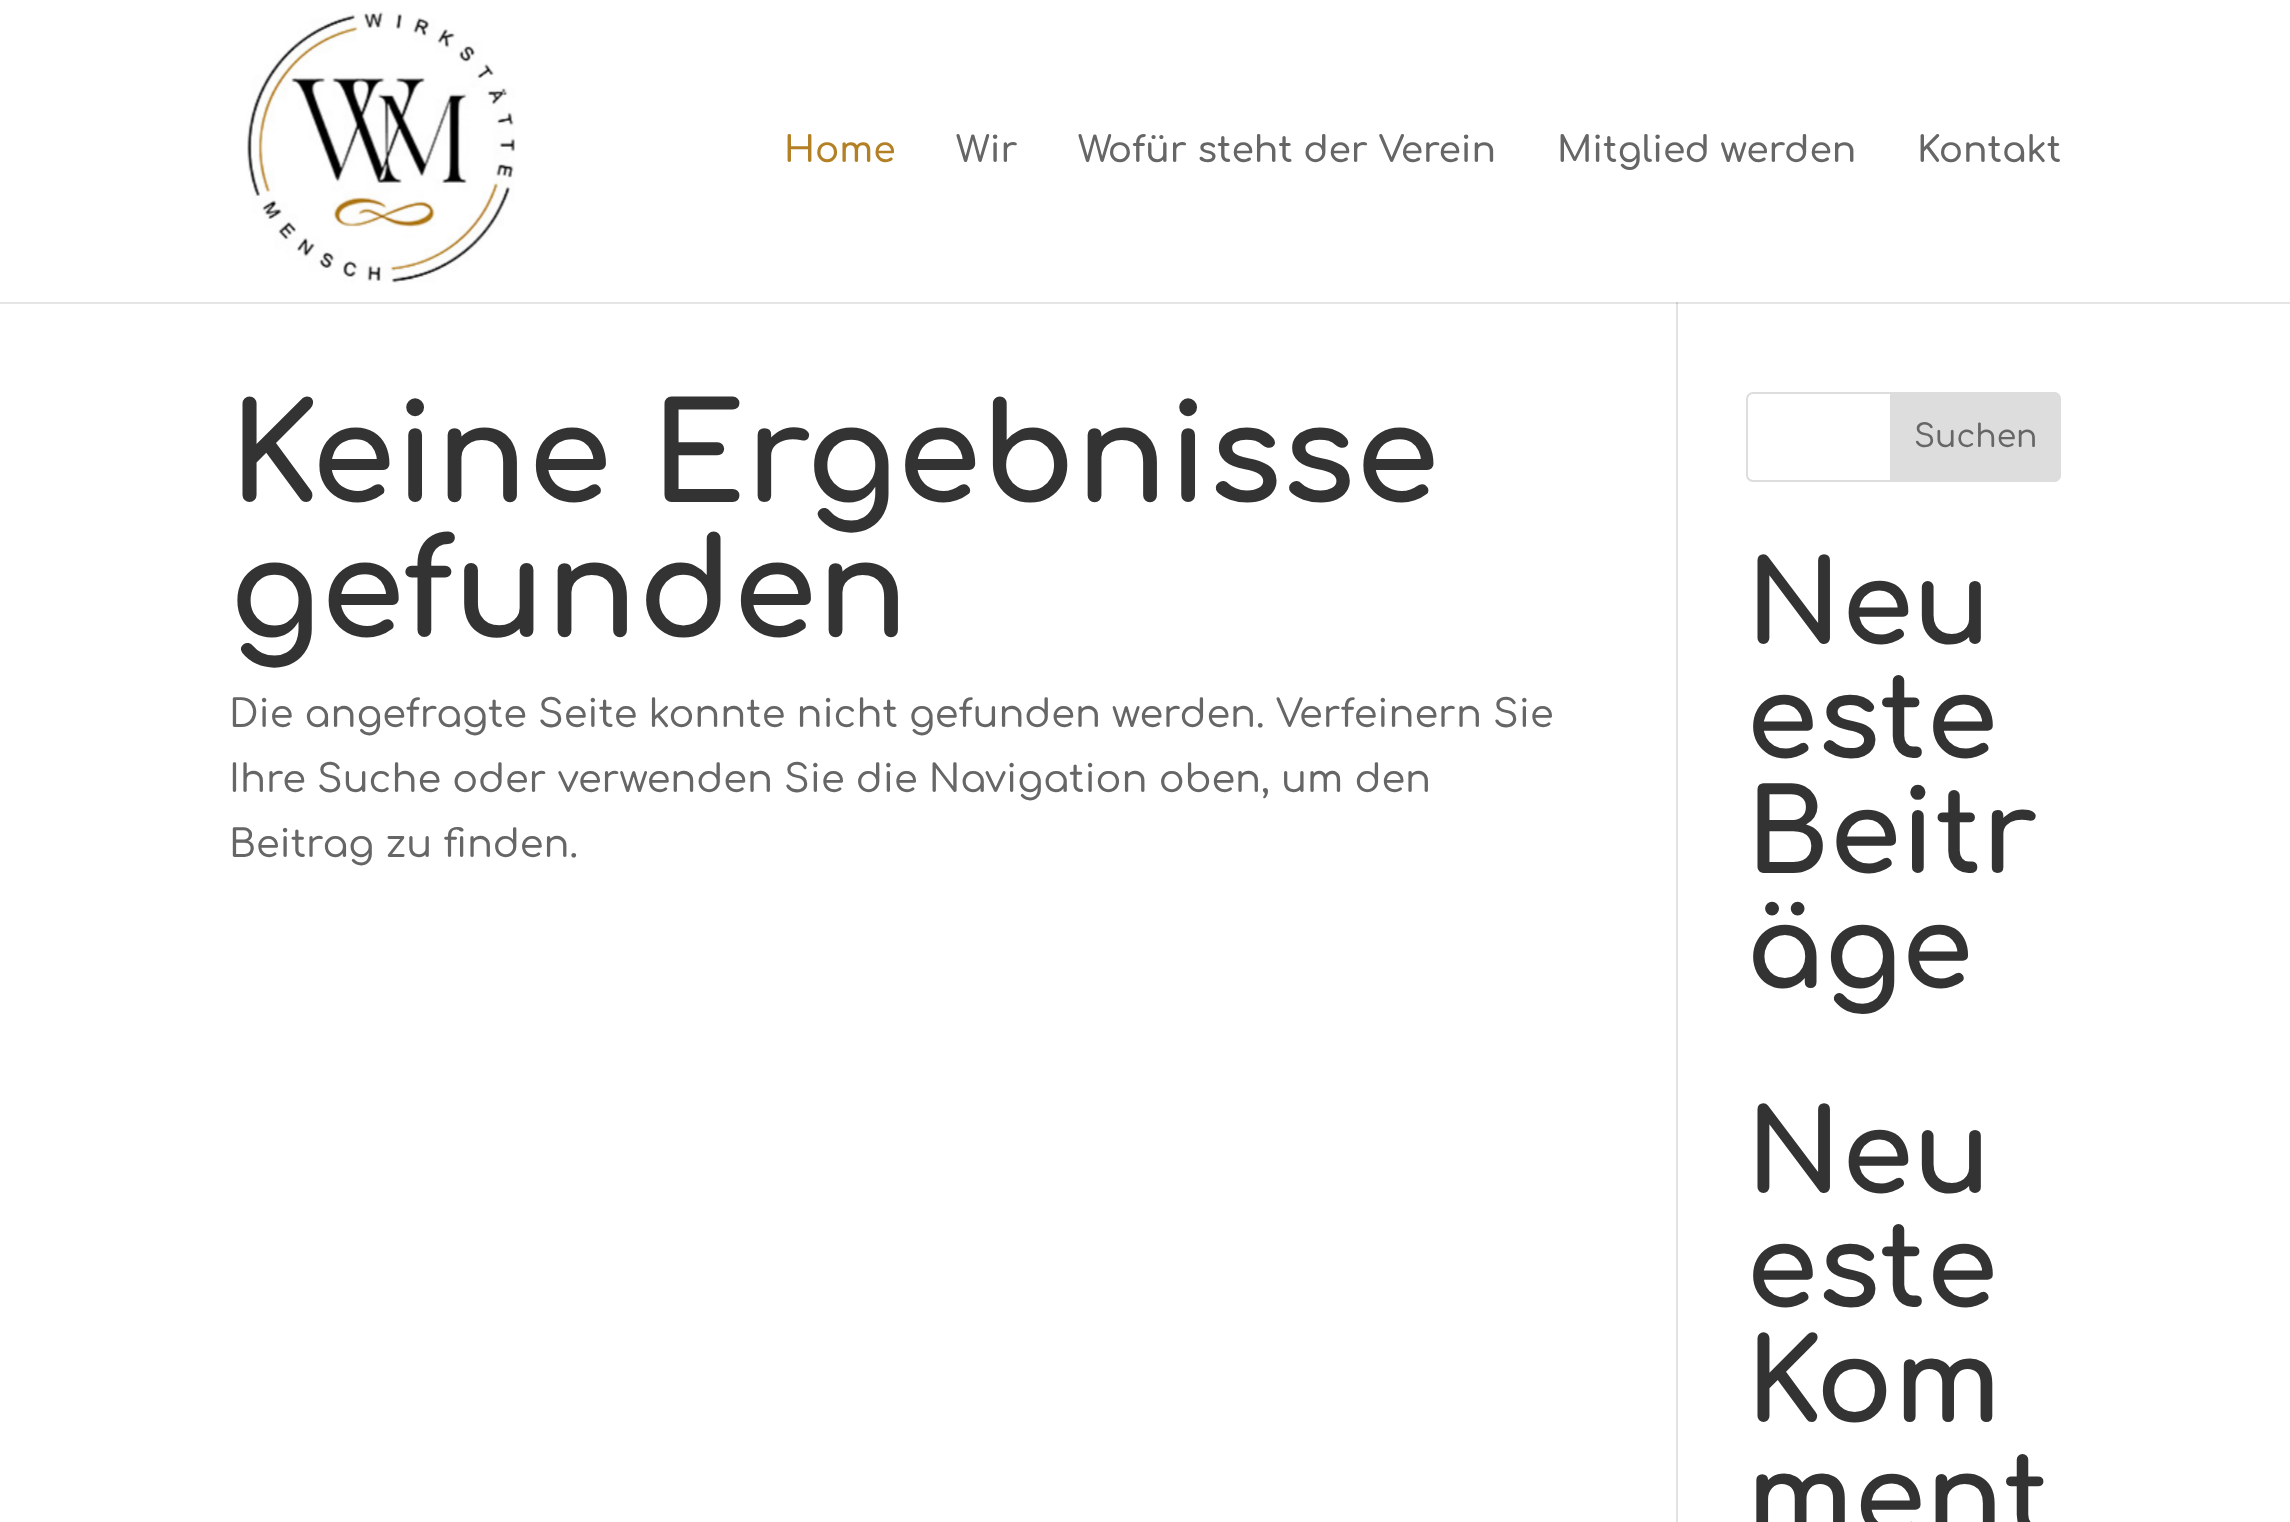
async function draw(canvas) {
  canvas.width = 2290;
  canvas.height = 1522;
  const ctx = canvas.getContext('2d');
  ctx.miterLimit = 4;
  ctx.fontKerning = 'normal';
  function label(s, x, y, font, color) {
    ctx.font = font;
    ctx.fillStyle = color;
    ctx.fillText(s, x, y);
  }
  function rect(x, y, w, h, color) {
    ctx.fillStyle = color;
    ctx.fillRect(x, y, w, h);
  }
  async function image(src, x, y, w, h) {
    const img = new Image();
    img.src = src;
    await img.decode();
    ctx.drawImage(img, x, y, w, h);
  }
  let path;

  rect(0, 0, 2290, 1522, '#fff');
  rect(1676, 302, 2, 1220, '#e2e2e2');
  ctx.fillStyle = '#0000001a';
  path = new Path2D('M0 302V304H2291V2H2290V302Z');
  ctx.fill(path);
  await image('assets/img1.png', 247, 11, 268, 272);
  label('Home', 784, 162, '600 36px Comfortaa', '#b38025');
  label('Wir', 956, 162, '600 36px Comfortaa', '#666');
  label('Wofür steht der Verein', 1078, 162, '600 36px Comfortaa', '#666');
  label('Mitglied werden', 1557, 162, '600 36px Comfortaa', '#666');
  label('Kontakt', 1917, 162, '600 36px Comfortaa', '#666');
  label('Keine Ergebnisse', 229, 502, 'bold 135px Comfortaa', '#333');
  label('gefunden', 229, 637, 'bold 135px Comfortaa', '#333');
  label('Die angefragte Seite konnte nicht gefunden werden. Verfeinern Sie', 229, 727, '500 38.25px Comfortaa', '#666');
  label('Ihre Suche oder verwenden Sie die Navigation oben, um den', 229, 792, '500 38.25px Comfortaa', '#666');
  label('Beitrag zu finden.', 229, 857, '500 38.25px Comfortaa', '#666');
  ctx.beginPath();
  ctx.roundRect(1747, 393, 313, 88, 6);
  ctx.strokeStyle = '#ddd';
  ctx.lineWidth = 2;
  ctx.stroke();
  ctx.fillStyle = '#ddd';
  ctx.beginPath();
  ctx.roundRect(1891, 393, 169, 88, [0, 6, 6, 0]);
  ctx.fill();
  ctx.stroke();
  label('Suchen', 1914, 447, '500 31.5px Comfortaa', '#666');
  label('Neu', 1746, 644, 'bold 115px Comfortaa', '#333');
  label('este', 1746, 758, 'bold 115px Comfortaa', '#333');
  label('Beitr', 1746, 873, 'bold 115px Comfortaa', '#333');
  label('äge', 1746, 988, 'bold 115px Comfortaa', '#333');
  label('Neu', 1746, 1193, 'bold 115px Comfortaa', '#333');
  label('este', 1746, 1307, 'bold 115px Comfortaa', '#333');
  label('Kom', 1746, 1422, 'bold 115px Comfortaa', '#333');
  label('ment', 1746, 1537, 'bold 115px Comfortaa', '#333');
}

draw(document.querySelector('canvas'));
